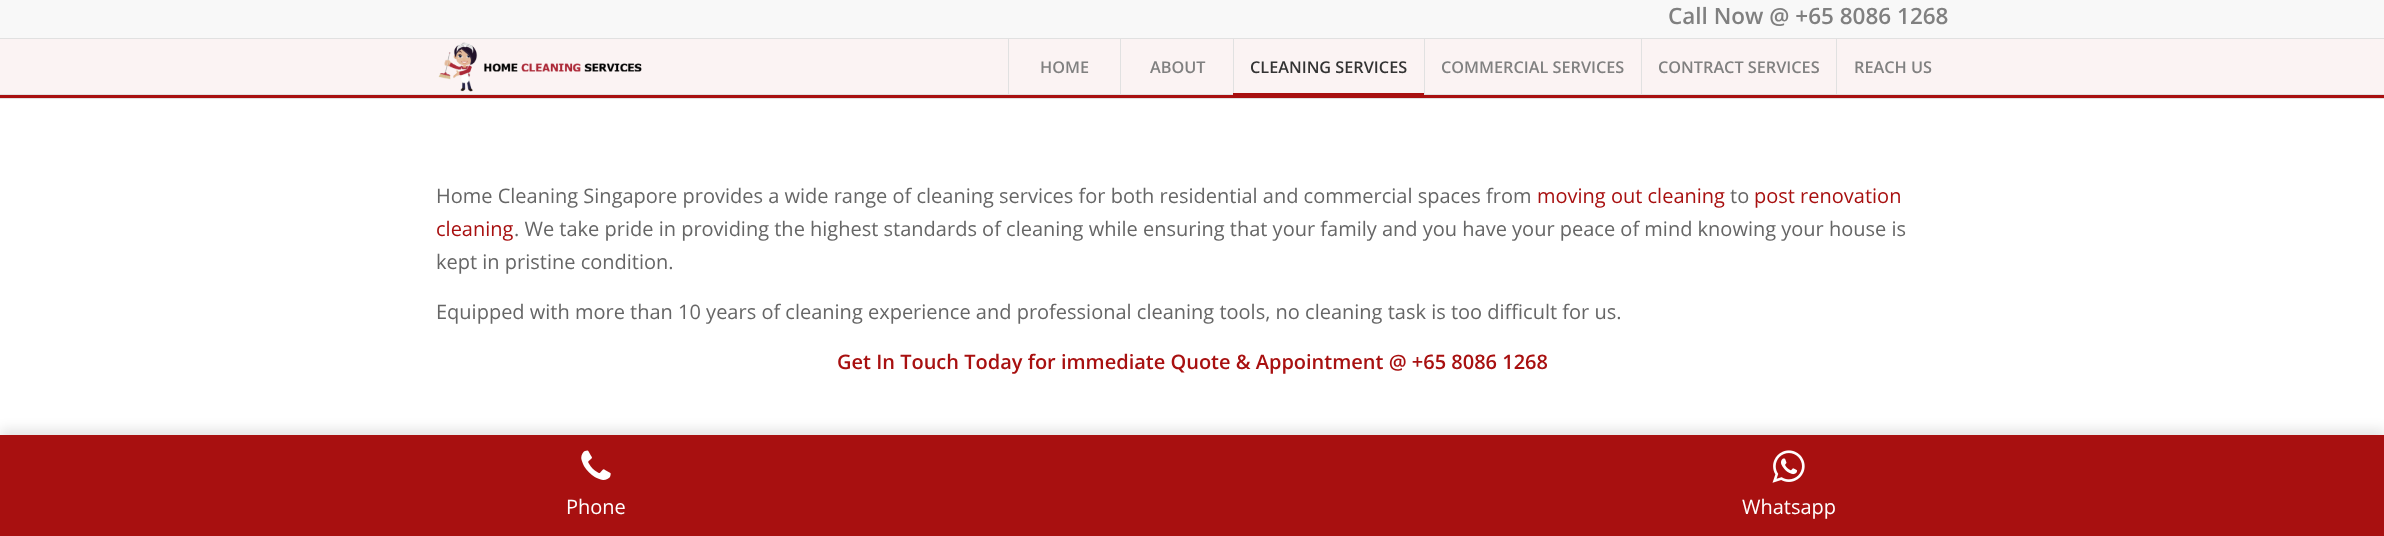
async function draw(canvas) {
  canvas.width = 2384;
  canvas.height = 536;
  const ctx = canvas.getContext('2d');
  ctx.miterLimit = 4;
  ctx.fontKerning = 'normal';
  function label(s, x, y, font, color) {
    ctx.font = font;
    ctx.fillStyle = color;
    ctx.fillText(s, x, y);
  }
  function rect(x, y, w, h, color) {
    ctx.fillStyle = color;
    ctx.fillRect(x, y, w, h);
  }
  async function image(src, x, y, w, h) {
    const img = new Image();
    img.src = src;
    await img.decode();
    ctx.drawImage(img, x, y, w, h);
  }

  rect(0, 0, 2384, 536, '#fff');
  rect(0, 0, 2384, 38, '#f8f8f8');
  rect(0, 38, 2384, 1, '#e1e1e1');
  label('Call Now @ +65 8086 1268', 1668, 24, '600 22.5px Open Sans', '#808080');
  rect(0, 94, 2384, 1, '#e1e1e1');
  rect(0, 39, 2384, 55, '#fbf3f3');
  await image('assets/img1.png', 438, 42, 204, 50);
  rect(1008, 39, 1, 55, '#e1e1e1');
  label('HOME', 1040, 73, '600 16.25px Open Sans', '#808080');
  rect(1120, 39, 1, 55, '#e1e1e1');
  label('ABOUT', 1150, 73, '600 16.25px Open Sans', '#808080');
  rect(1233, 39, 1, 55, '#e1e1e1');
  label('CLEANING SERVICES', 1250, 73, '600 16.25px Open Sans', '#333');
  rect(1233, 93, 191, 2, '#a81010');
  rect(1424, 39, 1, 55, '#e1e1e1');
  label('COMMERCIAL SERVICES', 1441, 73, '600 16.25px Open Sans', '#808080');
  rect(1641, 39, 1, 55, '#e1e1e1');
  label('CONTRACT SERVICES', 1658, 73, '600 16.25px Open Sans', '#808080');
  rect(1836, 39, 1, 55, '#e1e1e1');
  label('REACH US', 1854, 73, '600 16.25px Open Sans', '#808080');
  rect(0, 95, 2384, 3, '#a81010');
  rect(0, 98, 2384, 1, '#e1e1e1');
  label('Home Cleaning Singapore provides a wide range of cleaning services for both residential and commercial spaces from', 436, 203, '20px Open Sans', '#666');
  label('moving out cleaning', 1537, 203, '20px Open Sans', '#a81010');
  label('to', 1730, 203, '20px Open Sans', '#666');
  label('post renovation', 1754, 203, '20px Open Sans', '#a81010');
  label('cleaning', 436, 236, '20px Open Sans', '#a81010');
  label('. We take pride in providing the highest standards of cleaning while ensuring that your family and you have your peace of mind knowing your house is', 514, 236, '20px Open Sans', '#666');
  label('kept in pristine condition.', 436, 269, '20px Open Sans', '#666');
  label('Equipped with more than 10 years of cleaning experience and professional cleaning tools, no cleaning task is too difficult for us.', 436, 319, '20px Open Sans', '#666');
  label('Get In Touch Today for immediate Quote & Appointment @ +65 8086 1268', 837, 369, '600 20px Open Sans', '#a81010');
  ctx.fillStyle = '#0000001a';
  ctx.filter = 'blur(6px)';
  ctx.beginPath();
  ctx.rect(0, 429, 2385, 101);
  ctx.fill();
  ctx.filter = 'none';
  rect(0, 435, 2384, 101, '#a81010');
  await image('assets/img2.png', 581, 450, 30, 30);
  label('Phone', 566, 514, '20px Open Sans', '#fff');
  await image('assets/img3.png', 1772, 450, 33, 33);
  label('Whatsapp', 1742, 514, '20px Open Sans', '#fff');
}

draw(document.querySelector('canvas'));
